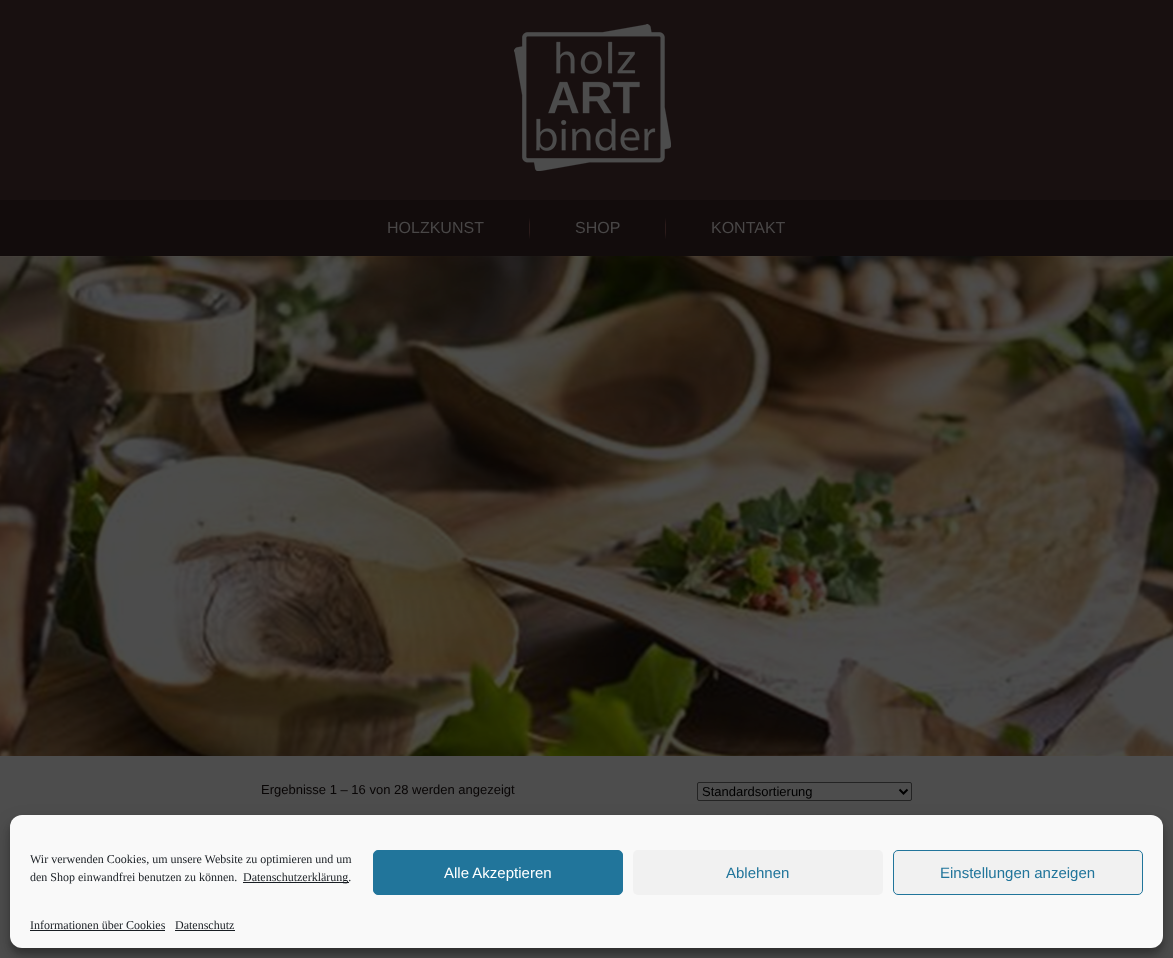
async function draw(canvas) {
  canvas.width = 1173;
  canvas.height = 958;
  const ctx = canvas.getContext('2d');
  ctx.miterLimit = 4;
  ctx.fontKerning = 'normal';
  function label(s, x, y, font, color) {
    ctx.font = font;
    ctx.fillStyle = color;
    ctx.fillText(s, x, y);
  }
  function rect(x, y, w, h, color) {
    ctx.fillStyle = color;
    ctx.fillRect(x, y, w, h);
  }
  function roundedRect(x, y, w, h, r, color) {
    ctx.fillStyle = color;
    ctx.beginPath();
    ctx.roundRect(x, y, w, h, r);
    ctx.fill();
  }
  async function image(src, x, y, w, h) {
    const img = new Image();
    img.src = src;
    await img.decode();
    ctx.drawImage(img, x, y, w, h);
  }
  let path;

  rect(0, 0, 1173, 958, '#4d4d4d');
  rect(0, 0, 1173, 200, '#181010');
  await image('assets/img1.png', 514, 24, 157, 147);
  rect(0, 200, 1173, 56, '#120c0c');
  label('HOLZKUNST', 387, 233, '16px Liberation Sans', '#494747');
  await image('assets/img2.png', 529, 218, 1, 21);
  label('SHOP', 575, 233, '16px Liberation Sans', '#494747');
  await image('assets/img2.png', 665, 218, 1, 21);
  label('KONTAKT', 711, 233, '16px Liberation Sans', '#494747');
  await image('assets/img3.png', 0, 256, 1173, 500);
  label('Ergebnisse 1 – 16 von 28 werden angezeigt', 261, 794, '13px Liberation Sans', '#080505');
  ctx.beginPath();
  ctx.roundRect(697.5, 782.5, 214, 18, 1.5);
  ctx.strokeStyle = '#232323';
  ctx.stroke();
  path = new Path2D('M899.5 789.5L903.5 793.5L907.5 789.5');
  ctx.strokeStyle = '#000';
  ctx.lineWidth = 2;
  ctx.stroke(path);
  label('Standardsortierung', 702, 796, '13px Liberation Sans', '#000');
  await image('assets/img4.png', 766, 814, 144, 1);
  ctx.fillStyle = '#0000003b';
  ctx.filter = 'blur(3px)';
  ctx.beginPath();
  ctx.roundRect(10, 821, 1153, 133, 12);
  ctx.fill();
  ctx.filter = 'none';
  ctx.fillStyle = '#00000030';
  ctx.filter = 'blur(10px)';
  ctx.beginPath();
  ctx.roundRect(10, 825, 1153, 133, 12);
  ctx.fill();
  ctx.filter = 'none';
  roundedRect(10, 815, 1153, 133, 12, '#f9f9f9');
  label('Wir verwenden Cookies, um unsere Website zu optimieren und um', 30, 863, '12px Liberation Serif', '#191e23');
  label('den Shop einwandfrei benutzen zu können.', 30, 881, '12px Liberation Serif', '#191e23');
  rect(243, 882, 106, 1, '#191e23');
  label('Datenschutzerklärung.', 243, 881, '12px Liberation Serif', '#191e23');
  ctx.fillStyle = '#21759b';
  ctx.beginPath();
  ctx.roundRect(373.5, 850.5, 249, 44, 4.5);
  ctx.fill();
  ctx.strokeStyle = '#21759b';
  ctx.lineWidth = 1;
  ctx.stroke();
  label('Alle Akzeptieren', 444, 878, '15px Liberation Sans', '#fff');
  roundedRect(633, 850, 250, 45, 5, '#f1f1f1');
  label('Ablehnen', 726, 878, '15px Liberation Sans', '#21759b');
  ctx.fillStyle = '#f1f1f1';
  ctx.beginPath();
  ctx.roundRect(893.5, 850.5, 249, 44, 4.5);
  ctx.fill();
  ctx.stroke();
  label('Einstellungen anzeigen', 940, 878, '15px Liberation Sans', '#21759b');
  label('Informationen über Cookies', 30, 929, '12px Liberation Serif', '#191e23');
  rect(30, 930, 135, 1, '#191e23');
  label('Datenschutz', 175, 929, '12px Liberation Serif', '#191e23');
  rect(175, 930, 60, 1, '#191e23');
}

draw(document.querySelector('canvas'));
